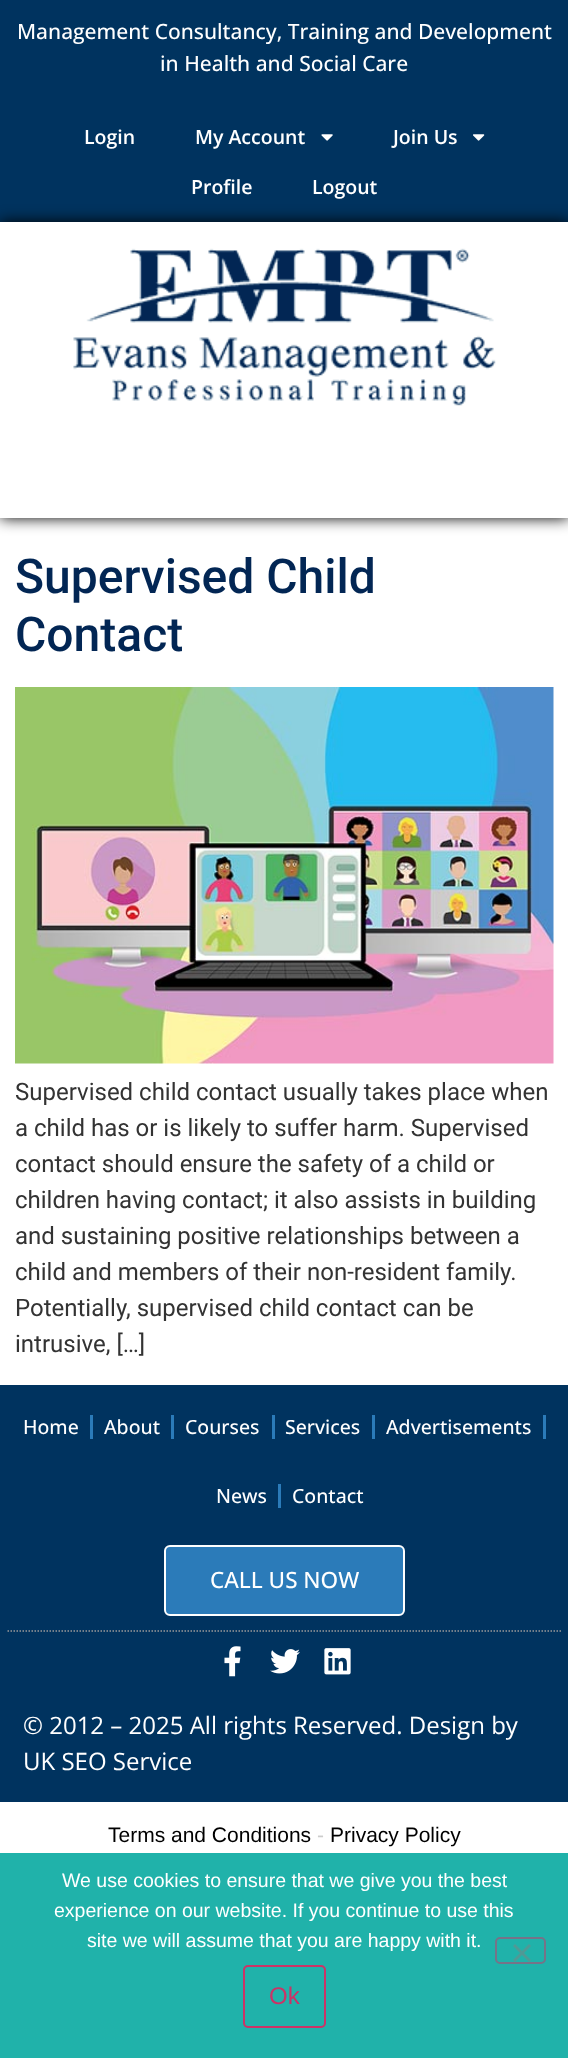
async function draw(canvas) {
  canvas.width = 568;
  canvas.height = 2058;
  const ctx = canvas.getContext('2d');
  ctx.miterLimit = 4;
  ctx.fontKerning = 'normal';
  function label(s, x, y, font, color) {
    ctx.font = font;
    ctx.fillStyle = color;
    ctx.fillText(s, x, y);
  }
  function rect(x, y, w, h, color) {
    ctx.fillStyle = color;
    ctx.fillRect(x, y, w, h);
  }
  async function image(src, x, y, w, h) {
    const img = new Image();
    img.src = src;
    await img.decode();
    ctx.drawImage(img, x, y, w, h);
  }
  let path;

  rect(0, 0, 568, 2058, '#fff');
  rect(0, 0, 568, 222, '#00335f');
  label('Management Consultancy, Training and Development', 17, 39, '500 21px Open Sans', '#fff');
  label('in Health and Social Care', 160, 71, '500 21px Open Sans', '#fff');
  label('Login', 84, 144, '600 19.5px Open Sans', '#fff');
  label('My Account', 195, 144, '600 19.5px Open Sans', '#fff');
  await image('assets/img1.png', 321, 134, 12, 7);
  label('Join Us', 393, 144, '600 19.5px Open Sans', '#fff');
  await image('assets/img2.png', 473, 134, 12, 7);
  label('Profile', 191, 194, '600 19.5px Open Sans', '#fff');
  ctx.save();
  path = new Path2D('M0 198H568V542H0ZM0 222H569V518H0Z');
  ctx.clip(path, 'evenodd');
  ctx.fillStyle = '#000';
  ctx.filter = 'blur(7.5px)';
  ctx.beginPath();
  ctx.rect(0, 222, 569, 296);
  ctx.fill();
  ctx.filter = 'none';
  ctx.restore();
  label('Logout', 312, 194, '600 19.5px Open Sans', '#fff');
  await image('assets/img3.png', 73, 248, 423, 158);
  label('Supervised Child', 15, 593, '500 48px Roboto', '#022654');
  label('Contact', 15, 651, '500 48px Roboto', '#022654');
  await image('assets/img4.png', 15, 687, 539, 377);
  label('Supervised child contact usually takes place when', 15, 1100, '24px Roboto', '#333');
  label('a child has or is likely to suffer harm. Supervised', 15, 1136, '24px Roboto', '#333');
  label('contact should ensure the safety of a child or', 15, 1172, '24px Roboto', '#333');
  label('children having contact; it also assists in building', 15, 1208, '24px Roboto', '#333');
  label('and sustaining positive relationships between a', 15, 1244, '24px Roboto', '#333');
  label('child and members of their non-resident family.', 15, 1280, '24px Roboto', '#333');
  label('Potentially, supervised child contact can be', 15, 1316, '24px Roboto', '#333');
  label('intrusive, […]', 15, 1352, '24px Roboto', '#333');
  rect(0, 1385, 568, 417, '#00335f');
  path = new Path2D('M7.5 1631H561');
  ctx.strokeStyle = '#9b9b9b';
  ctx.lineWidth = 1.5;
  ctx.setLineDash([1.5, 1.5]);
  ctx.stroke(path);
  label('Home', 23, 1434, '500 19.5px Open Sans', '#fff');
  rect(90, 1415, 3, 24, '#2b7bb9');
  label('About', 104, 1434, '500 19.5px Open Sans', '#fff');
  rect(171, 1415, 3, 24, '#2b7bb9');
  label('Courses', 185, 1434, '500 19.5px Open Sans', '#fff');
  rect(272, 1415, 3, 24, '#2b7bb9');
  label('Services', 285, 1434, '500 19.5px Open Sans', '#fff');
  rect(372, 1415, 3, 24, '#2b7bb9');
  label('Advertisements', 386, 1434, '500 19.5px Open Sans', '#fff');
  rect(543, 1415, 3, 24, '#2b7bb9');
  label('News', 216, 1503, '500 19.5px Open Sans', '#fff');
  rect(278, 1484, 3, 24, '#2b7bb9');
  label('Contact', 292, 1503, '500 19.5px Open Sans', '#fff');
  ctx.fillStyle = '#2b7bb9';
  ctx.beginPath();
  ctx.roundRect(165, 1546, 239, 69, 5);
  ctx.fill();
  ctx.strokeStyle = '#fff';
  ctx.lineWidth = 2;
  ctx.setLineDash([]);
  ctx.stroke();
  label('CALL US NOW', 210, 1588, '500 22.5px Open Sans', '#fff');
  await image('assets/img5.png', 224, 1646, 17, 31);
  await image('assets/img6.png', 270, 1649, 30, 25);
  await image('assets/img7.png', 324, 1648, 27, 27);
  label('© 2012 – 2025 All rights Reserved. Design by', 23, 1734, '24px Open Sans', '#fff');
  label('UK SEO Service', 23, 1770, '24px Open Sans', '#fff');
  label('Terms and Conditions', 108, 1842, '21px Liberation Sans', '#000');
  label('-', 317, 1842, '21px Liberation Sans', '#ccc');
  label('Privacy Policy', 330, 1842, '21px Liberation Sans', '#000');
  rect(0, 1853, 568, 205, '#20b2aa');
  label('We use cookies to ensure that we give you the best', 62, 1887, '19.5px Liberation Sans', '#fff');
  label('experience on our website. If you continue to use this', 54, 1917, '19.5px Liberation Sans', '#fff');
  label('site we will assume that you are happy with it.', 87, 1947, '19.5px Liberation Sans', '#fff');
  ctx.beginPath();
  ctx.roundRect(496, 1938, 49, 25, 4);
  ctx.strokeStyle = '#767388';
  ctx.stroke();
  ctx.fillStyle = '#509995';
  path = new Path2D('M529 1944L531 1946L515 1962L513 1960Z');
  ctx.fill(path);
  path = new Path2D('M513 1946L515 1944L531 1960L529 1962Z');
  ctx.fill(path);
  ctx.beginPath();
  ctx.roundRect(244, 1966, 81, 61, 4);
  ctx.strokeStyle = '#c36';
  ctx.stroke();
  label('Ok', 269, 2004, '24px Liberation Sans', '#c36');
}

draw(document.querySelector('canvas'));
